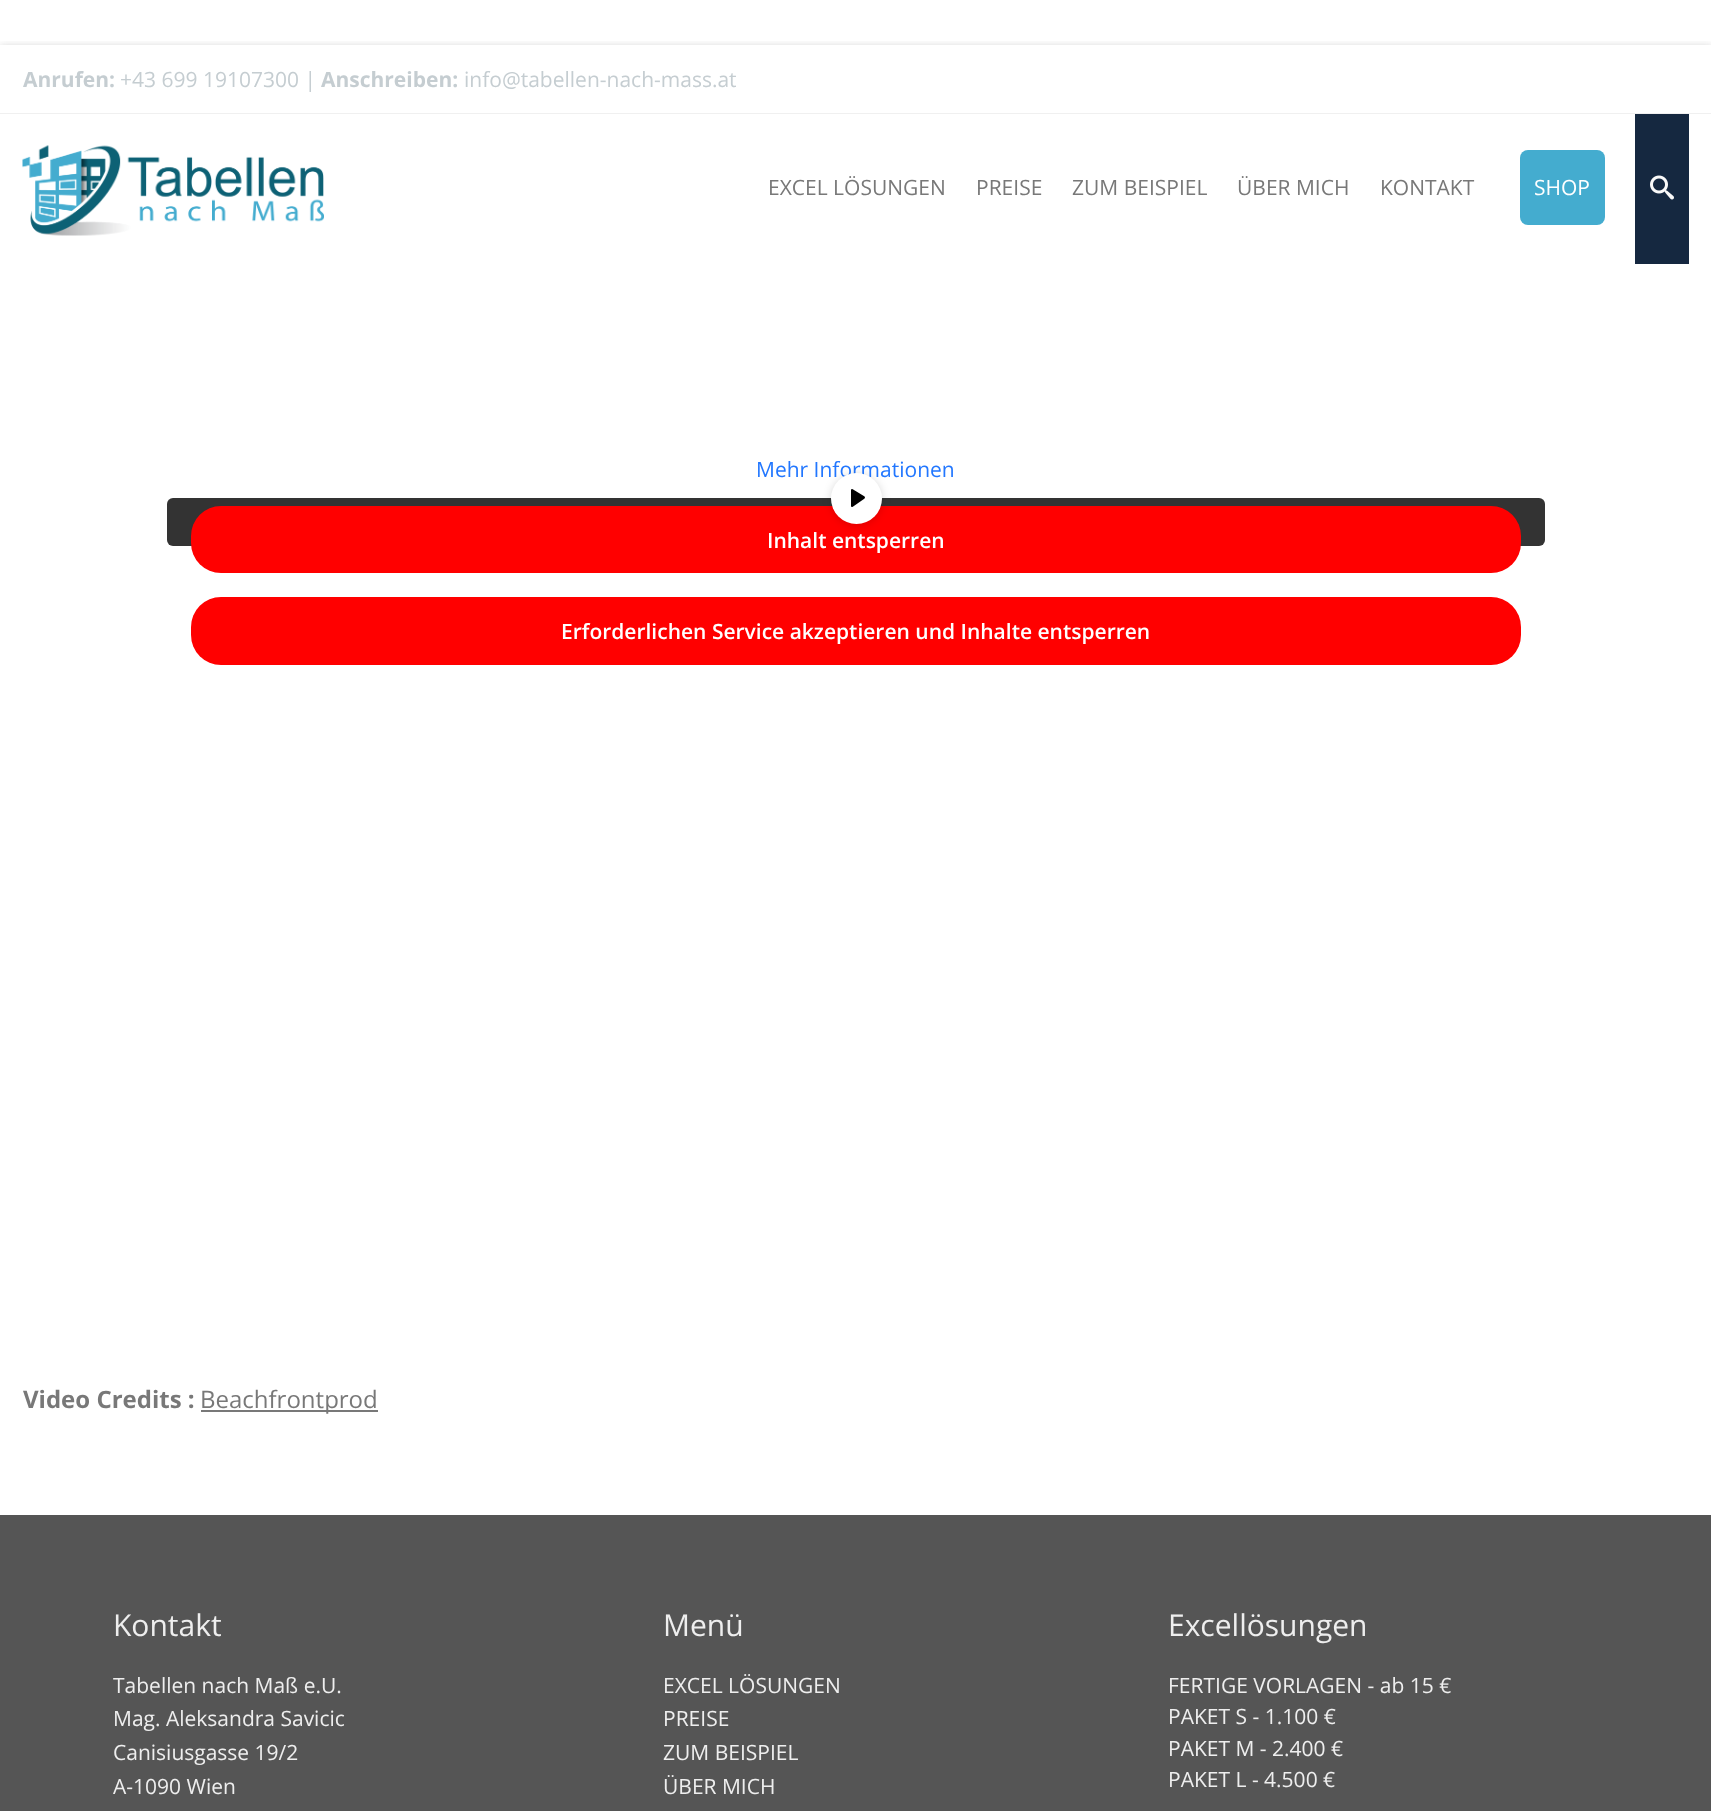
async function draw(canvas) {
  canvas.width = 1711;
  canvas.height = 1811;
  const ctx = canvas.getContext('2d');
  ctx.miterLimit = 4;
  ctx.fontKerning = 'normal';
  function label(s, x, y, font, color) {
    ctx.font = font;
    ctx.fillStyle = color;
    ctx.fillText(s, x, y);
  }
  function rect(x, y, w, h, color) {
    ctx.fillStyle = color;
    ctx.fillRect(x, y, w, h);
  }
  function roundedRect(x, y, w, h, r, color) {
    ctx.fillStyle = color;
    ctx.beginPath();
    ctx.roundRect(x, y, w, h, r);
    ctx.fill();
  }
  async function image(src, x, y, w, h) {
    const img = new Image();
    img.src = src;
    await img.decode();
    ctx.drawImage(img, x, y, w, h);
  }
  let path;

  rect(0, 0, 1711, 1811, '#fff');
  ctx.save();
  ctx.beginPath();
  ctx.rect(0, 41, 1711, 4);
  ctx.clip();
  ctx.fillStyle = '#32323247';
  ctx.filter = 'blur(4px)';
  ctx.beginPath();
  ctx.rect(0, 47, 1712, 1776);
  ctx.fill();
  ctx.filter = 'none';
  ctx.restore();
  rect(0, 113, 1711, 1, '#f0f0f0');
  label('Anrufen:', 23, 87, 'bold 21px Open Sans', '#c5cdd1');
  label('+43 699 19107300 |', 120, 87, '21px Open Sans', '#c5cdd1');
  label('Anschreiben:', 321, 87, 'bold 21px Open Sans', '#c5cdd1');
  label('info@tabellen-nach-mass.at', 464, 87, '21px Open Sans', '#c5cdd1');
  await image('assets/img1.png', 22, 145, 302, 91);
  label('EXCEL LÖSUNGEN', 768, 195, '21px Open Sans', '#787878');
  label('PREISE', 976, 195, '21px Open Sans', '#787878');
  label('ZUM BEISPIEL', 1072, 195, '21px Open Sans', '#787878');
  label('ÜBER MICH', 1237, 195, '21px Open Sans', '#787878');
  label('KONTAKT', 1380, 195, '21px Open Sans', '#787878');
  roundedRect(1520, 150, 85, 75, 8, '#44accf');
  label('SHOP', 1534, 195, '21px Open Sans', '#fff');
  rect(1635, 114, 54, 150, '#152840');
  await image('assets/img2.png', 1650, 175, 24, 25);
  roundedRect(167, 498, 1378, 48, 6, '#333');
  label('Mehr Informationen', 756, 477, '21px Open Sans', '#27f');
  roundedRect(191, 506, 1330, 67, 30, '#f00');
  ctx.fillStyle = '#00000026';
  ctx.filter = 'blur(4px)';
  ctx.beginPath();
  ctx.roundRect(831, 474, 51, 51, 25.5);
  ctx.fill();
  ctx.filter = 'none';
  ctx.fillStyle = '#fff';
  ctx.beginPath();
  ctx.arc(856.5, 498.5, 25.5, 0, 2 * Math.PI);
  ctx.fill();
  ctx.fillStyle = '#000';
  path = new Path2D('M852 505.5V490.5L863.5 497.5Z');
  ctx.fill(path);
  ctx.save();
  ctx.beginPath();
  ctx.rect(851, 489, 18, 18);
  ctx.clip();
  path = new Path2D('M852 505.5V490.5L863.5 497.5Z');
  ctx.strokeStyle = '#000';
  ctx.lineWidth = 2.8;
  ctx.lineCap = 'round';
  ctx.lineJoin = 'round';
  ctx.stroke(path);
  ctx.restore();
  label('Inhalt entsperren', 767, 548, '600 21px Open Sans', '#fff');
  roundedRect(191, 597, 1330, 68, 30, '#f00');
  label('Erforderlichen Service akzeptieren und Inhalte entsperren', 561, 639, '600 21px Open Sans', '#fff');
  label('Video Credits :', 23, 1408, 'bold 24px Open Sans', '#787878');
  rect(201, 1410, 177, 2, '#787878');
  label('Beachfrontprod', 200, 1408, '24px Open Sans', '#787878');
  rect(0, 1515, 1711, 296, '#555');
  label('Kontakt', 113, 1636, '30px Open Sans', '#eee');
  label('Tabellen nach Maß e.U.', 113, 1693, '21px Open Sans', '#eee');
  label('Mag. Aleksandra Savicic', 113, 1726, '21px Open Sans', '#eee');
  label('Canisiusgasse 19/2', 113, 1760, '21px Open Sans', '#eee');
  label('A-1090 Wien', 113, 1794, '21px Open Sans', '#eee');
  label('Menü', 663, 1636, '30px Open Sans', '#eee');
  label('EXCEL LÖSUNGEN', 663, 1693, '21px Open Sans', '#eee');
  label('PREISE', 663, 1726, '21px Open Sans', '#eee');
  label('ZUM BEISPIEL', 663, 1760, '21px Open Sans', '#eee');
  label('ÜBER MICH', 663, 1794, '21px Open Sans', '#eee');
  label('Excellösungen', 1168, 1636, '30px Open Sans', '#eee');
  label('FERTIGE VORLAGEN - ab 15 €', 1168, 1693, '21px Open Sans', '#eee');
  label('PAKET S - 1.100 €', 1168, 1724, '21px Open Sans', '#eee');
  label('PAKET M - 2.400 €', 1168, 1756, '21px Open Sans', '#eee');
  label('PAKET L - 4.500 €', 1168, 1787, '21px Open Sans', '#eee');
}

draw(document.querySelector('canvas'));
